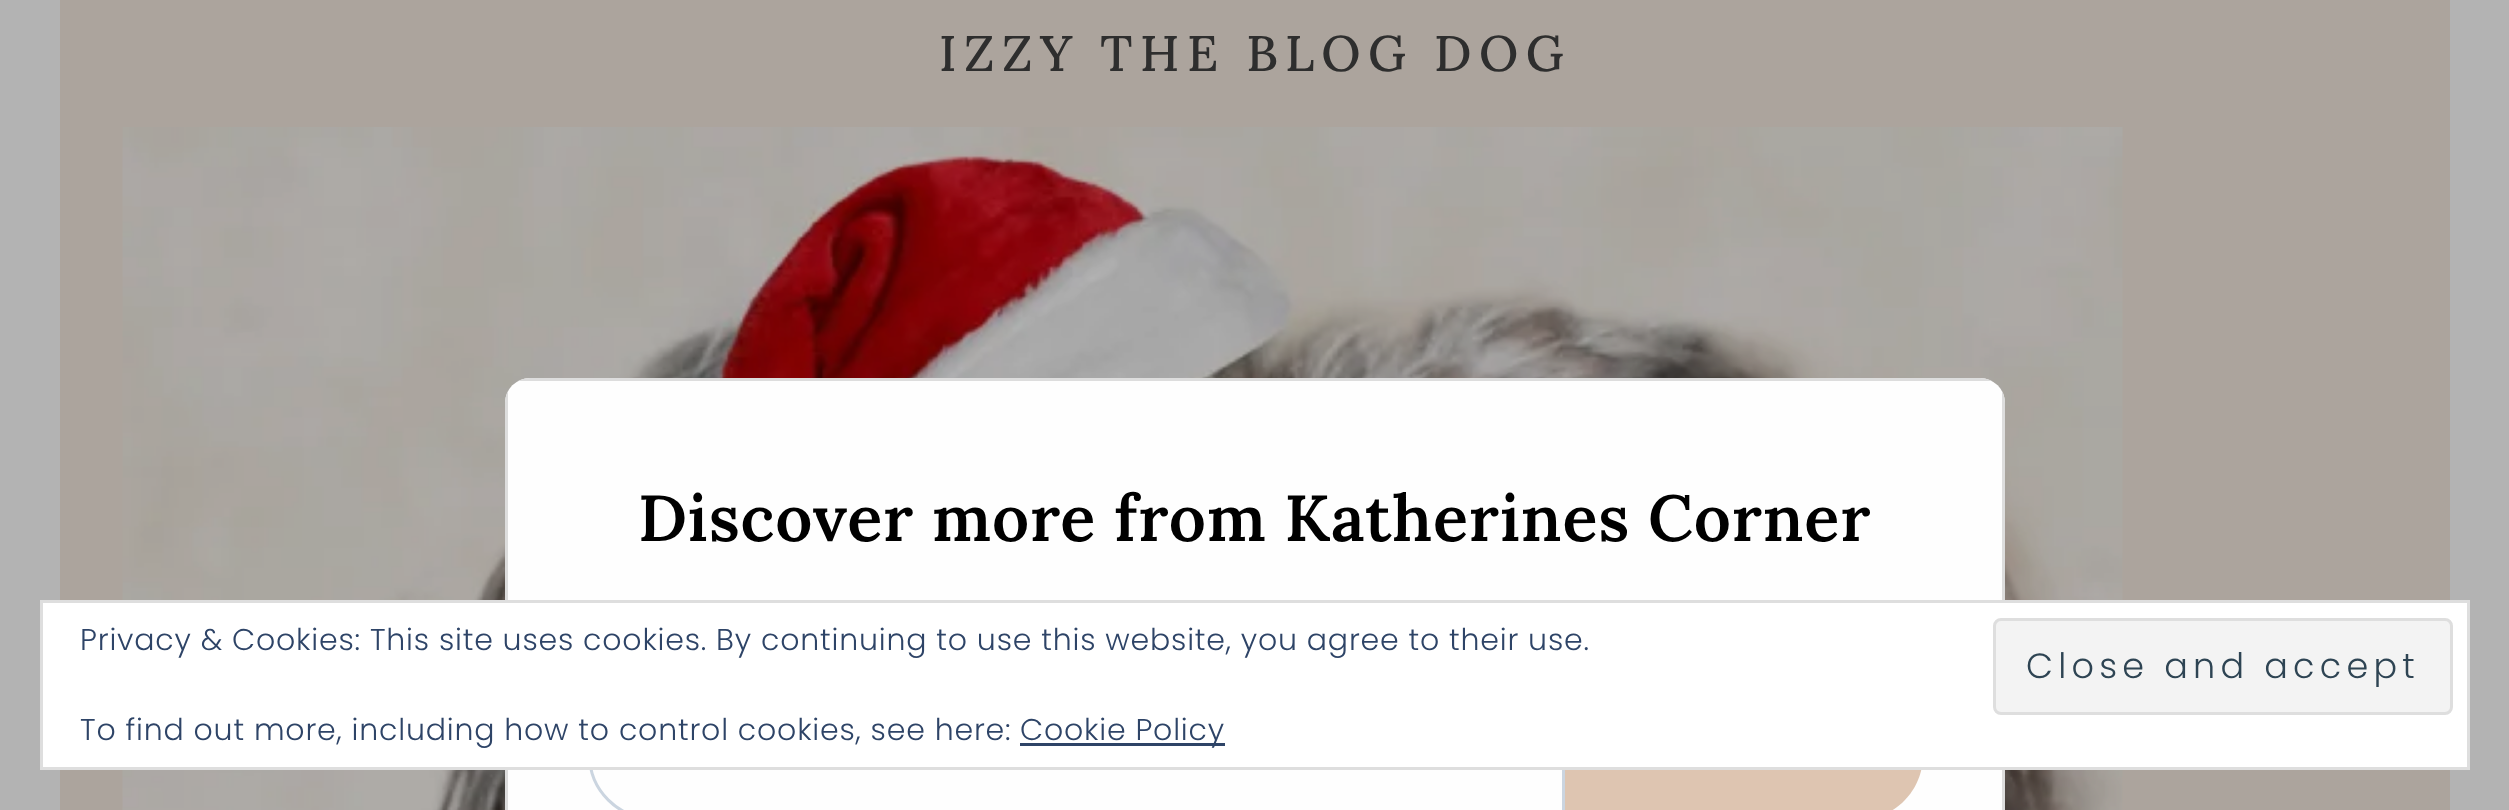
async function draw(canvas) {
  canvas.width = 2509;
  canvas.height = 810;
  const ctx = canvas.getContext('2d');
  ctx.miterLimit = 4;
  ctx.fontKerning = 'normal';
  function label(s, x, y, font, color) {
    ctx.font = font;
    ctx.fillStyle = color;
    ctx.fillText(s, x, y);
  }
  function rect(x, y, w, h, color) {
    ctx.fillStyle = color;
    ctx.fillRect(x, y, w, h);
  }
  async function image(src, x, y, w, h) {
    const img = new Image();
    img.src = src;
    await img.decode();
    ctx.drawImage(img, x, y, w, h);
  }
  let path;

  rect(0, 0, 2509, 810, '#b3b3b3');
  rect(60, 0, 2390, 810, '#aca49d');
  ctx.letterSpacing = '7.5px';
  label('IZZY THE BLOG DOG', 939, 71, '500 50px Lora', '#2e2e2e');
  await image('assets/img1.png', 122, 127, 2001, 683);
  ctx.fillStyle = '#fefefe';
  ctx.beginPath();
  ctx.roundRect(505, 378, 1500, 432, [25, 25, 0, 0]);
  ctx.fill();
  ctx.fillStyle = '#ddd';
  path = new Path2D('M505 403V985C505 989 506 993 508 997V391C506 395 505 399 505 403ZM530 378C526 378 522 379 518 381H1992C1988 379 1984 378 1980 378ZM2005 403C2005 399 2004 395 2002 391V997C2004 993 2005 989 2005 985ZM1980 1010C1984 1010 1988 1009 1992 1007H518C522 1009 526 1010 530 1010Z');
  ctx.fill(path, 'evenodd');
  ctx.letterSpacing = '0.8px';
  label('Discover more from Katherines Corner', 638, 541, '600 65px Lora', '#000');
  path = new Path2D('M653 691.5H1563.5V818.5H653C618 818.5 589.5 790 589.5 755C589.5 720 618 691.5 653 691.5Z');
  ctx.strokeStyle = '#cbd5e0';
  ctx.lineWidth = 3;
  ctx.stroke(path);
  ctx.fillStyle = '#dec5b1';
  path = new Path2D('M1565 690H1858C1894 690 1923 719 1923 755C1923 791 1894 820 1858 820H1565Z');
  ctx.fill(path);
  ctx.fillStyle = '#fff';
  ctx.beginPath();
  ctx.rect(41.5, 601.5, 2427, 167);
  ctx.fill();
  ctx.strokeStyle = '#dedede';
  ctx.stroke();
  label('Privacy & Cookies: This site uses cookies. By continuing to use this website, you agree to their use.', 80, 650, '300 30px Poppins', '#2e4467');
  ctx.fillStyle = '#f3f3f3';
  ctx.beginPath();
  ctx.roundRect(1994.5, 619.5, 457, 94, 6.5);
  ctx.fill();
  ctx.stroke();
  ctx.letterSpacing = '5.25px';
  label('Close and accept', 2026, 678, '300 35px Poppins', '#2e4453');
  ctx.letterSpacing = '0.8px';
  label('To find out more, including how to control cookies, see here:', 80, 740, '300 30px Poppins', '#2e4467');
  rect(1020, 743, 205, 3, '#2e4467');
  label('Cookie Policy', 1020, 740, '300 30px Poppins', '#2e4467');
}

draw(document.querySelector('canvas'));
